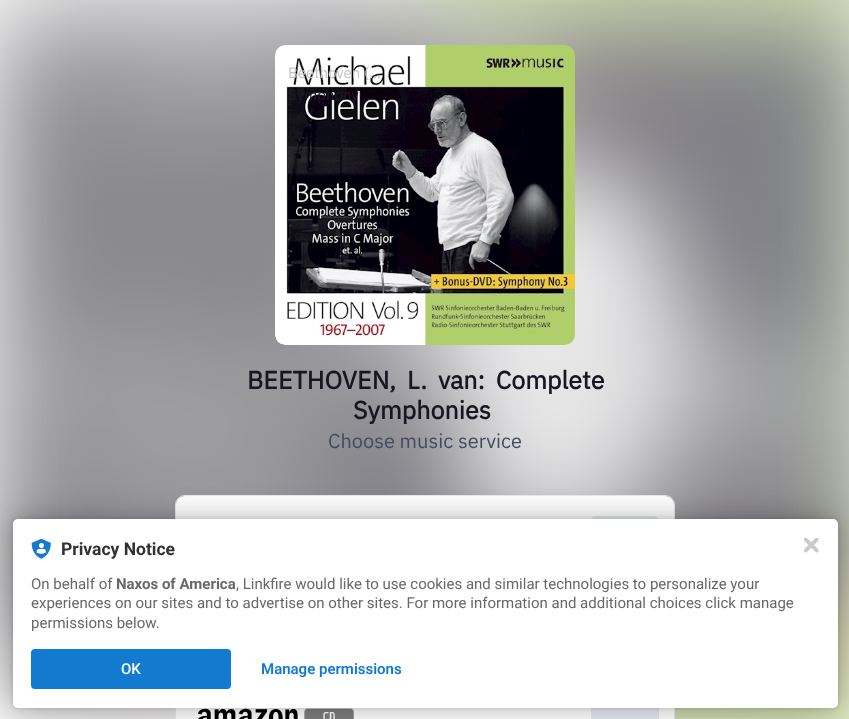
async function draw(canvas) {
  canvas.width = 849;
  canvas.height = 719;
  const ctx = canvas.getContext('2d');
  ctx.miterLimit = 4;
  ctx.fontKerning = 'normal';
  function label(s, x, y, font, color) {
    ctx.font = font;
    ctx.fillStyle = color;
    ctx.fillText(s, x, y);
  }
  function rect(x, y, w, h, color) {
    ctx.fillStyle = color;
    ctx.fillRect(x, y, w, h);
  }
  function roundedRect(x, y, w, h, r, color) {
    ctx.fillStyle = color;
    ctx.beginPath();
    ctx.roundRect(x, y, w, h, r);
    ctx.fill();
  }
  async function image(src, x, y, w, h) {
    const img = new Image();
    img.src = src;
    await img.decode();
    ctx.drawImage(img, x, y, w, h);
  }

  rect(0, 0, 849, 719, '#fff');
  await image('assets/img1.png', 0, 0, 849, 719);
  await image('assets/img2.png', 275, 45, 300, 300);
  label('Beethoven (…', 288, 78, '15px IBM Plex Sans', '#c5c5c5');
  label('Symphony …', 288, 100, '15px IBM Plex Sans', '#1f1c25');
  ctx.wordSpacing = '5px';
  label('BEETHOVEN, L. van: Complete', 247, 389, 'bold 25px IBM Plex Sans', '#181721');
  ctx.wordSpacing = '0px';
  label('Symphonies', 353, 419, 'bold 25px IBM Plex Sans', '#181721');
  label('Choose music service', 328, 448, '20px IBM Plex Sans', '#454b5f');
  ctx.beginPath();
  ctx.roundRect(175.5, 495.5, 499, 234, 9.5);
  ctx.strokeStyle = '#e6eaf2';
  ctx.stroke();
  roundedRect(176, 496, 498, 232, 9, '#fff');
  roundedRect(591, 516, 68, 50, 5, '#e6eaf2');
  await image('assets/img3.png', 198, 708, 156, 11);
  rect(591, 708, 68, 11, '#e6eaf2');
  ctx.fillStyle = '#0000001f';
  ctx.filter = 'blur(2.5px)';
  ctx.beginPath();
  ctx.roundRect(13, 519, 825, 189, 5);
  ctx.fill();
  ctx.filter = 'none';
  ctx.fillStyle = '#0000004d';
  ctx.filter = 'blur(15px)';
  ctx.beginPath();
  ctx.roundRect(13, 519, 825, 189, 5);
  ctx.fill();
  ctx.filter = 'none';
  roundedRect(13, 519, 825, 189, 5, '#fff');
  await image('assets/img4.png', 31, 539, 20, 20);
  label('Privacy Notice', 61, 555, 'bold 17.5px Roboto', '#323232');
  label('On behalf of', 31, 589, '15px Roboto', '#686868');
  label('Naxos of America', 116, 589, 'bold 15px Roboto', '#686868');
  label(', Linkfire would like to use cookies and similar technologies to personalize your', 236, 589, '15px Roboto', '#686868');
  label('experiences on our sites and to advertise on other sites. For more information and additional choices click manage', 31, 608, '15px Roboto', '#686868');
  label('permissions below.', 31, 628, '15px Roboto', '#686868');
  roundedRect(31, 649, 200, 40, 4, '#137bcf');
  label('OK', 121, 674, '500 15px Roboto', '#fff');
  label('Manage permissions', 261, 674, '600 15px Roboto', '#137bcf');
  await image('assets/img5.png', 804, 538, 15, 15);
}

draw(document.querySelector('canvas'));
